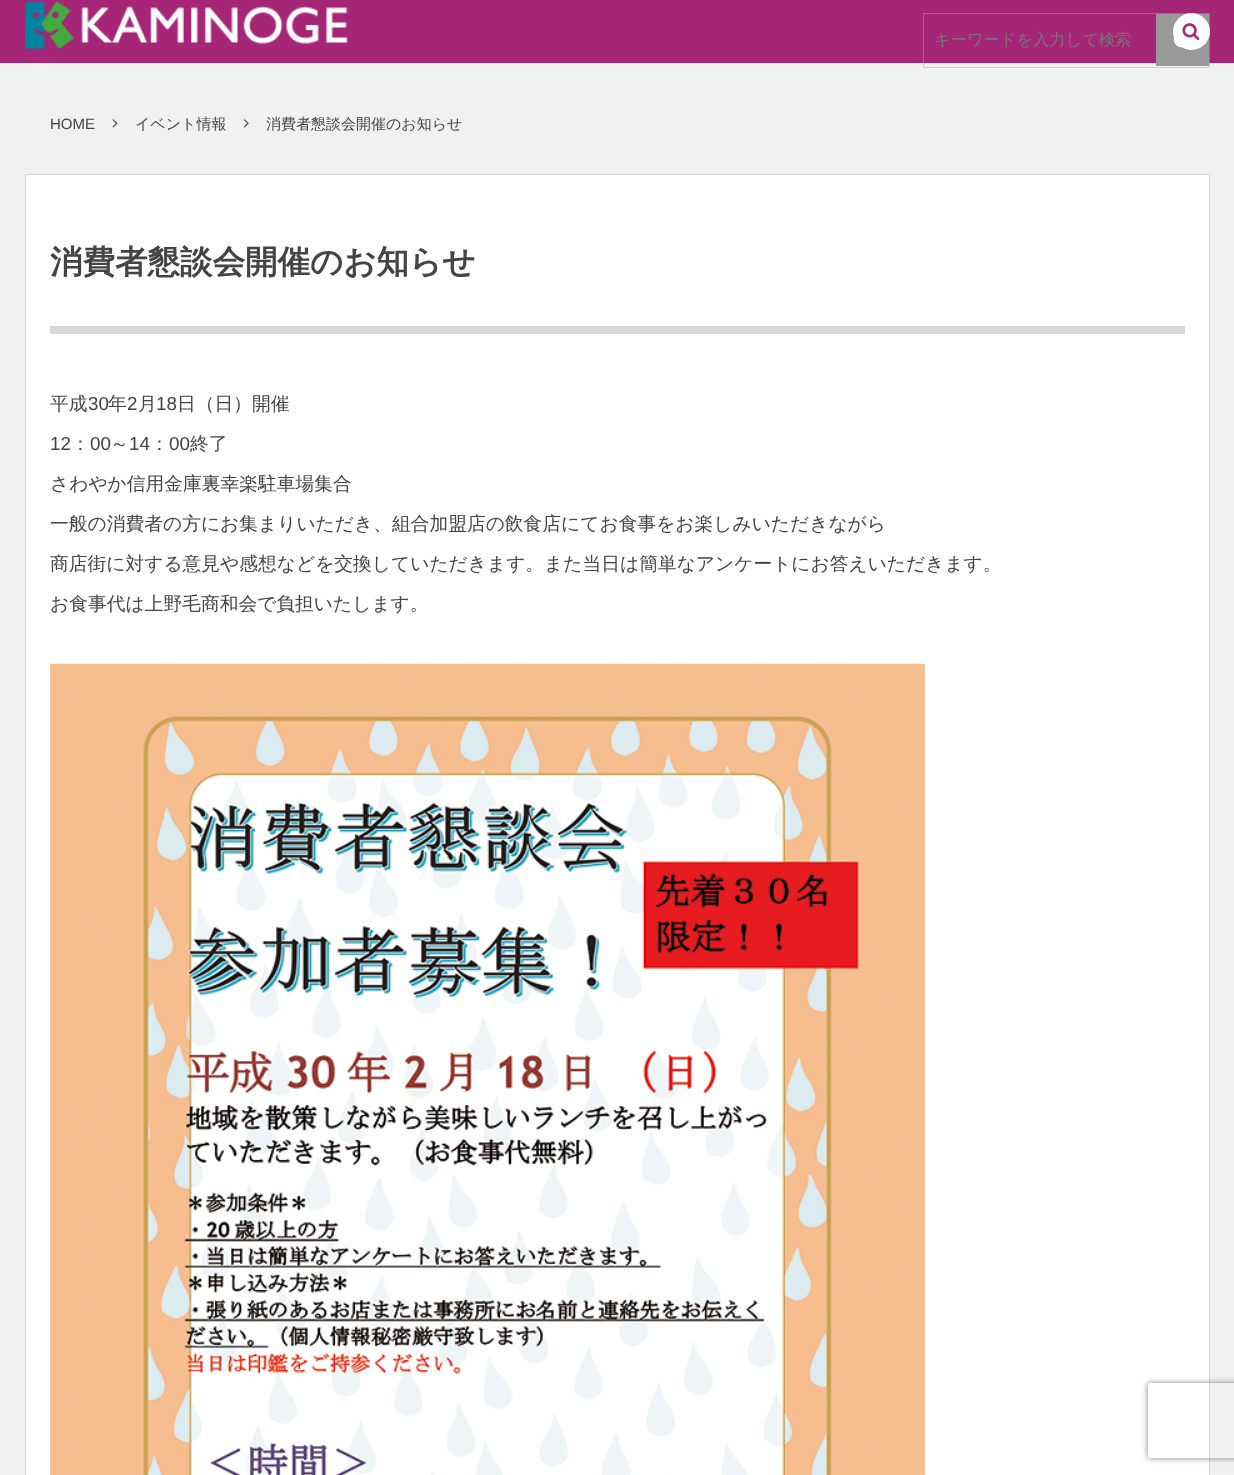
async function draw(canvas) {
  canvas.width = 1234;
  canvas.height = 1475;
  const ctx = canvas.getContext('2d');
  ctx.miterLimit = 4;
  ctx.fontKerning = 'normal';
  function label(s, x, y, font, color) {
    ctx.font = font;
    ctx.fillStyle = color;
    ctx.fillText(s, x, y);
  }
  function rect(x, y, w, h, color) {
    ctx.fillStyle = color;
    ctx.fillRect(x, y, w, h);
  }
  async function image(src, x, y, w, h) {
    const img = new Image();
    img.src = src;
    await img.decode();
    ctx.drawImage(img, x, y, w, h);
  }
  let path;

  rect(0, 0, 1234, 1475, '#f1f1f1');
  rect(0, 0, 1234, 63, '#a52676');
  await image('assets/img1.png', 24, 1, 324, 48);
  ctx.strokeStyle = '#aaaaaa7a';
  ctx.strokeRect(923.5, 13.5, 286, 54);
  label('キーワードを入力して検索', 934, 45, '500 16.25px WenQuanYi Zen Hei', '#757575');
  rect(1156, 14, 53, 52, '#999');
  await image('assets/img2.png', 1173, 37, 20, 14);
  label('HOME', 50, 129, '15px Liberation Sans', '#444');
  await image('assets/img3.png', 112, 119, 6, 9);
  label('イベント情報', 135, 129, '500 15px WenQuanYi Zen Hei', '#444');
  await image('assets/img4.png', 243, 119, 6, 9);
  label('消費者懇談会開催のお知らせ', 266, 129, '500 15px WenQuanYi Zen Hei', '#444');
  ctx.fillStyle = '#fff';
  ctx.beginPath();
  ctx.rect(25.5, 174.5, 1184, 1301);
  ctx.fill();
  ctx.strokeStyle = '#d6d6d6';
  ctx.stroke();
  rect(50, 326, 1135, 8, '#d6d6d6');
  label('消費者懇談会開催のお知らせ', 50, 273, 'bold 32.5px WenQuanYi Zen Hei', '#444');
  label('平成', 50, 410, '500 18.75px WenQuanYi Zen Hei', '#444');
  label('30', 88, 410, '18.75px Liberation Sans', '#444');
  label('年', 108, 410, '500 18.75px WenQuanYi Zen Hei', '#444');
  label('2', 127, 410, '18.75px Liberation Sans', '#444');
  label('月', 138, 410, '500 18.75px WenQuanYi Zen Hei', '#444');
  label('18', 156, 410, '18.75px Liberation Sans', '#444');
  label('日（日）開催', 177, 410, '500 18.75px WenQuanYi Zen Hei', '#444');
  label('12', 50, 450, '18.75px Liberation Sans', '#444');
  label('：', 71, 450, '500 18.75px WenQuanYi Zen Hei', '#444');
  label('00', 90, 450, '18.75px Liberation Sans', '#444');
  label('～', 110, 450, '500 18.75px WenQuanYi Zen Hei', '#444');
  label('14', 129, 450, '18.75px Liberation Sans', '#444');
  label('：', 150, 450, '500 18.75px WenQuanYi Zen Hei', '#444');
  label('00', 169, 450, '18.75px Liberation Sans', '#444');
  label('終了', 190, 450, '500 18.75px WenQuanYi Zen Hei', '#444');
  label('さわやか信用金庫裏幸楽駐車場集合', 50, 490, '500 18.75px WenQuanYi Zen Hei', '#444');
  label('一般の消費者の方にお集まりいただき、組合加盟店の飲食店にてお食事をお楽しみいただきながら', 50, 530, '500 18.75px WenQuanYi Zen Hei', '#444');
  label('商店街に対する意見や感想などを交換していただきます。また当日は簡単なアンケートにお答えいただきます。', 50, 570, '500 18.75px WenQuanYi Zen Hei', '#444');
  label('お食事代は上野毛商和会で負担いたします。', 50, 610, '500 18.75px WenQuanYi Zen Hei', '#444');
  await image('assets/img5.png', 50, 663, 875, 812);
  ctx.fillStyle = '#fff';
  ctx.beginPath();
  ctx.arc(1191.5, 31.5, 18.5, 0, 2 * Math.PI);
  ctx.fill();
  await image('assets/img6.png', 1182, 23, 18, 17);
  ctx.save();
  path = new Path2D('M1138 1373H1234V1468H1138ZM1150.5 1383H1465.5C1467 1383 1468 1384 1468 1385.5V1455.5C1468 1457 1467 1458 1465.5 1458H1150.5C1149 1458 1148 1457 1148 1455.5V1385.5C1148 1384 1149 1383 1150.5 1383Z');
  ctx.clip(path, 'evenodd');
  ctx.fillStyle = '#808080';
  ctx.filter = 'blur(3px)';
  ctx.beginPath();
  ctx.roundRect(1148, 1383, 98, 75, 2.5);
  ctx.fill();
  ctx.filter = 'none';
  ctx.restore();
}

draw(document.querySelector('canvas'));
